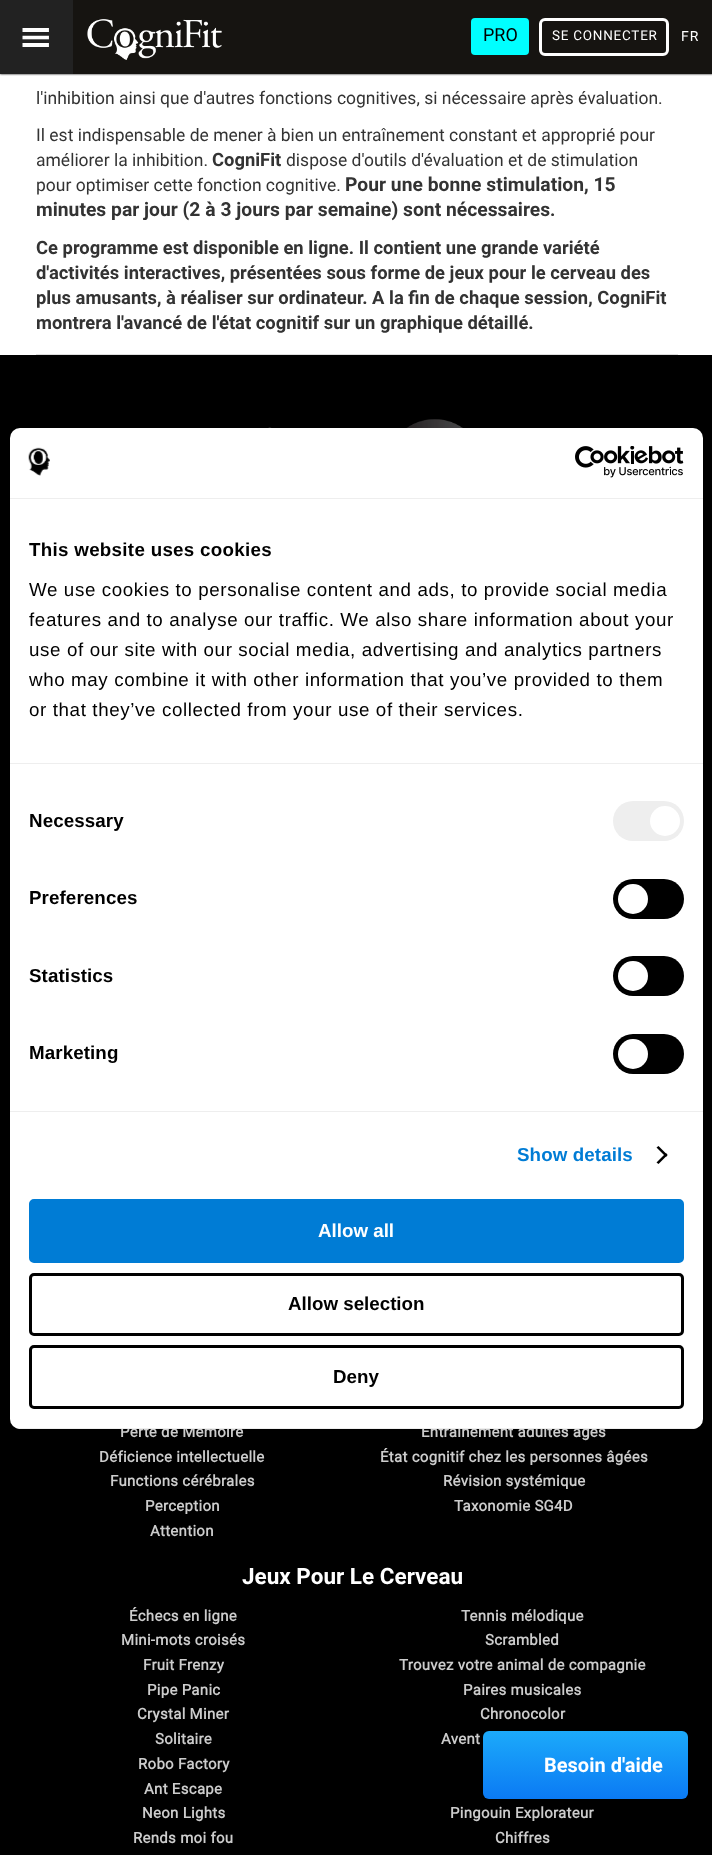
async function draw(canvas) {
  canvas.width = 712;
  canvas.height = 1855;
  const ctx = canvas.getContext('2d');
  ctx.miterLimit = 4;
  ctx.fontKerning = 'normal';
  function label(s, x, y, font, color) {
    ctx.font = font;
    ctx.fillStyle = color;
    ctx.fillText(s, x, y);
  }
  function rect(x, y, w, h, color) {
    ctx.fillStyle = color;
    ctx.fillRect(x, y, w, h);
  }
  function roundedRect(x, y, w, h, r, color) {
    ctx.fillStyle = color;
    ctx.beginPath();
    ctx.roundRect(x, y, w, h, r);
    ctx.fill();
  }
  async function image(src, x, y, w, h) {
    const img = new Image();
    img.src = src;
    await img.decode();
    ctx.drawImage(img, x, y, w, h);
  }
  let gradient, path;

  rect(0, 0, 712, 1855, '#fff');
  ctx.fillStyle = '#000';
  ctx.filter = 'blur(1px)';
  ctx.beginPath();
  ctx.rect(0, 0, 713, 74);
  ctx.fill();
  ctx.filter = 'none';
  rect(73, 0, 639, 74, '#161411');
  rect(0, 0, 73, 74, '#222');
  await image('assets/img1.png', 22, 28, 27, 19);
  await image('assets/img2.png', 87, 19, 135, 41);
  roundedRect(471, 18, 58, 37, 4, '#0ff');
  label('PRO', 483, 41, '18px Roboto', '#000');
  ctx.beginPath();
  ctx.roundRect(540.5, 19.5, 127, 35, 4.5);
  ctx.strokeStyle = '#fff';
  ctx.lineWidth = 3;
  ctx.stroke();
  ctx.letterSpacing = '0.75px';
  label('SE CONNECTER', 552, 40, '13.5px Roboto', '#fff');
  ctx.letterSpacing = '1px';
  label('FR', 681, 41, '14px Roboto', '#fff');
  ctx.letterSpacing = '0px';
  label('l\'inhibition ainsi que d\'autres fonctions cognitives, si nécessaire après évaluation.', 36, 104, '17.5px Roboto', '#333');
  label('Il est indispensable de mener à bien un entraînement constant et approprié pour', 36, 141, '17.5px Roboto', '#333');
  label('améliorer la inhibition.', 36, 166, '17.5px Roboto', '#333');
  label('CogniFit', 212, 166, 'bold 18.4px Roboto', '#333');
  label('dispose d\'outils d\'évaluation et de stimulation', 286, 166, '17.5px Roboto', '#333');
  label('pour optimiser cette fonction cognitive.', 36, 191, '17.5px Roboto', '#333');
  label('Pour une bonne stimulation, 15', 345, 191, 'bold 19.3px Roboto', '#333');
  label('minutes par jour (2 à 3 jours par semaine) sont nécessaires', 36, 216, 'bold 19.3px Roboto', '#333');
  label('.', 550, 216, 'bold 18.4px Roboto', '#333');
  label('Ce programme est disponible en ligne. Il contient une grande variété', 36, 254, 'bold 18.4px Roboto', '#333');
  label('d\'activités interactives, présentées sous forme de jeux pour le cerveau des', 36, 279, 'bold 18.4px Roboto', '#333');
  label('plus amusants, à réaliser sur ordinateur. A la fin de chaque session, CogniFit', 36, 304, 'bold 18.4px Roboto', '#333');
  label('montrera l\'avancé de l\'état cognitif sur un graphique détaillé.', 36, 329, 'bold 18.4px Roboto', '#333');
  rect(36, 354, 642, 1, '#ddd');
  rect(0, 355, 712, 1500, '#000');
  await image('assets/img5.png', 268, 419, 195, 9);
  ctx.fillStyle = '#0000004d';
  ctx.filter = 'blur(42.5px)';
  ctx.beginPath();
  ctx.roundRect(10, 468, 693, 1001, 10);
  ctx.fill();
  ctx.filter = 'none';
  ctx.letterSpacing = '0.3px';
  label('Perte de Mémoire', 120, 1437, 'bold 15px "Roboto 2"', '#ccc');
  label('Entraînement adultes âgés', 421, 1437, 'bold 15px "Roboto 2"', '#ccc');
  roundedRect(10, 428, 693, 1001, 10, '#fff');
  rect(10, 498, 693, 1, '#eee');
  await image('assets/img3.png', 28, 447, 22, 29);
  await image('assets/img4.png', 575, 446, 109, 32);
  rect(10, 763, 693, 1, '#eee');
  label('This website uses cookies', 29, 556, 'bold 18.75px Liberation Sans', '#000');
  ctx.letterSpacing = '0.62px';
  label('We use cookies to personalise content and ads, to provide social media', 29, 596, '18.75px Liberation Sans', '#000');
  label('features and to analyse our traffic. We also share information about your', 29, 626, '18.75px Liberation Sans', '#000');
  label('use of our site with our social media, advertising and analytics partners', 29, 656, '18.75px Liberation Sans', '#000');
  label('who may combine it with other information that you’ve provided to them', 29, 686, '18.75px Liberation Sans', '#000');
  label('or that they’ve collected from your use of their services.', 29, 716, '18.75px Liberation Sans', '#000');
  rect(10, 1111, 693, 1, '#eee');
  ctx.letterSpacing = '0.1px';
  label('Necessary', 29, 827, 'bold 18.75px Liberation Sans', '#000');
  roundedRect(613, 801, 71, 40, 20, '#eee');
  ctx.fillStyle = '#fff';
  ctx.beginPath();
  ctx.arc(665, 821, 15, 0, 2 * Math.PI);
  ctx.fill();
  label('Preferences', 29, 904, 'bold 18.75px Liberation Sans', '#000');
  roundedRect(613, 879, 71, 40, 20, '#000');
  ctx.fillStyle = '#fff';
  ctx.beginPath();
  ctx.arc(633, 899, 15, 0, 2 * Math.PI);
  ctx.fill();
  label('Statistics', 29, 982, 'bold 18.75px Liberation Sans', '#000');
  roundedRect(613, 956, 71, 40, 20, '#000');
  ctx.fillStyle = '#fff';
  ctx.beginPath();
  ctx.arc(633, 976, 15, 0, 2 * Math.PI);
  ctx.fill();
  label('Marketing', 29, 1059, 'bold 18.75px Liberation Sans', '#000');
  roundedRect(613, 1034, 71, 40, 20, '#000');
  ctx.fillStyle = '#fff';
  ctx.beginPath();
  ctx.arc(633, 1054, 15, 0, 2 * Math.PI);
  ctx.fill();
  label('Show details', 517, 1161, 'bold 18.75px Liberation Sans', '#007cd5');
  ctx.fillStyle = '#000';
  path = new Path2D('M658.5 1146L667.5 1155L666 1157L656.5 1147.5Z');
  ctx.fill(path);
  path = new Path2D('M666 1153L667.5 1155L658.5 1164L656.5 1162.5Z');
  ctx.fill(path);
  ctx.save();
  ctx.beginPath();
  ctx.roundRect(10, 428, 693, 1001, 10);
  ctx.clip();
  rect(10, 1428, 693, 1, '#eee');
  ctx.restore();
  ctx.fillStyle = '#007cd5';
  ctx.beginPath();
  ctx.roundRect(30.5, 1200.5, 652, 61, 3.5);
  ctx.fill();
  ctx.strokeStyle = '#007cd5';
  ctx.stroke();
  ctx.letterSpacing = '0px';
  label('Allow all', 318, 1237, 'bold 18.75px Liberation Sans', '#fff');
  ctx.beginPath();
  ctx.roundRect(30.5, 1274.5, 652, 60, 3.5);
  ctx.strokeStyle = '#000';
  ctx.stroke();
  label('Allow selection', 288, 1310, 'bold 18.75px Liberation Sans', '#000');
  ctx.beginPath();
  ctx.roundRect(30.5, 1346.5, 652, 61, 3.5);
  ctx.stroke();
  label('Deny', 333, 1383, 'bold 18.75px Liberation Sans', '#000');
  ctx.letterSpacing = '0.3px';
  label('Déficience intellectuelle', 99, 1462, 'bold 15px "Roboto 2"', '#ccc');
  label('Functions cérébrales', 110, 1486, 'bold 15px "Roboto 2"', '#ccc');
  label('Perception', 145, 1511, 'bold 15px "Roboto 2"', '#ccc');
  label('Attention', 150, 1536, 'bold 15px "Roboto 2"', '#ccc');
  label('État cognitif chez les personnes âgées', 380, 1462, 'bold 15px "Roboto 2"', '#ccc');
  label('Révision systémique', 443, 1486, 'bold 15px "Roboto 2"', '#ccc');
  label('Taxonomie SG4D', 454, 1511, 'bold 15px "Roboto 2"', '#ccc');
  ctx.letterSpacing = '0px';
  label('Jeux Pour Le Cerveau', 242, 1584, 'bold 22.5px Roboto', '#fff');
  ctx.letterSpacing = '0.3px';
  label('Échecs en ligne', 129, 1621, 'bold 15px "Roboto 2"', '#ccc');
  label('Tennis mélodique', 461, 1621, 'bold 15px "Roboto 2"', '#ccc');
  label('Mini-mots croisés', 121, 1645, 'bold 15px "Roboto 2"', '#ccc');
  label('Scrambled', 485, 1645, 'bold 15px "Roboto 2"', '#ccc');
  label('Fruit Frenzy', 143, 1670, 'bold 15px "Roboto 2"', '#ccc');
  label('Trouvez votre animal de compagnie', 399, 1670, 'bold 15px "Roboto 2"', '#ccc');
  label('Pipe Panic', 147, 1695, 'bold 15px "Roboto 2"', '#ccc');
  label('Paires musicales', 463, 1695, 'bold 15px "Roboto 2"', '#ccc');
  label('Crystal Miner', 137, 1719, 'bold 15px "Roboto 2"', '#ccc');
  label('Chronocolor', 480, 1719, 'bold 15px "Roboto 2"', '#ccc');
  label('Solitaire', 155, 1744, 'bold 15px "Roboto 2"', '#ccc');
  label('Avent', 441, 1744, 'bold 15px "Roboto 2"', '#ccc');
  label('Robo Factory', 138, 1769, 'bold 15px "Roboto 2"', '#ccc');
  label('Ant Escape', 144, 1794, 'bold 15px "Roboto 2"', '#ccc');
  label('Neon Lights', 142, 1818, 'bold 15px "Roboto 2"', '#ccc');
  label('Pingouin Explorateur', 450, 1818, 'bold 15px "Roboto 2"', '#ccc');
  label('Rends moi fou', 133, 1843, 'bold 15px "Roboto 2"', '#ccc');
  label('Chiffres', 495, 1843, 'bold 15px "Roboto 2"', '#ccc');
  gradient = ctx.createLinearGradient(585, 1731, 585, 1799);
  gradient.addColorStop(0, '#1caafa');
  gradient.addColorStop(1, '#0b7af4');
  ctx.fillStyle = gradient;
  ctx.beginPath();
  ctx.roundRect(483, 1731, 205, 68, 6);
  ctx.fill();
  ctx.letterSpacing = '0px';
  label('Besoin d\'aide', 544, 1772, 'bold 20px Roboto', '#fff');
}

draw(document.querySelector('canvas'));
